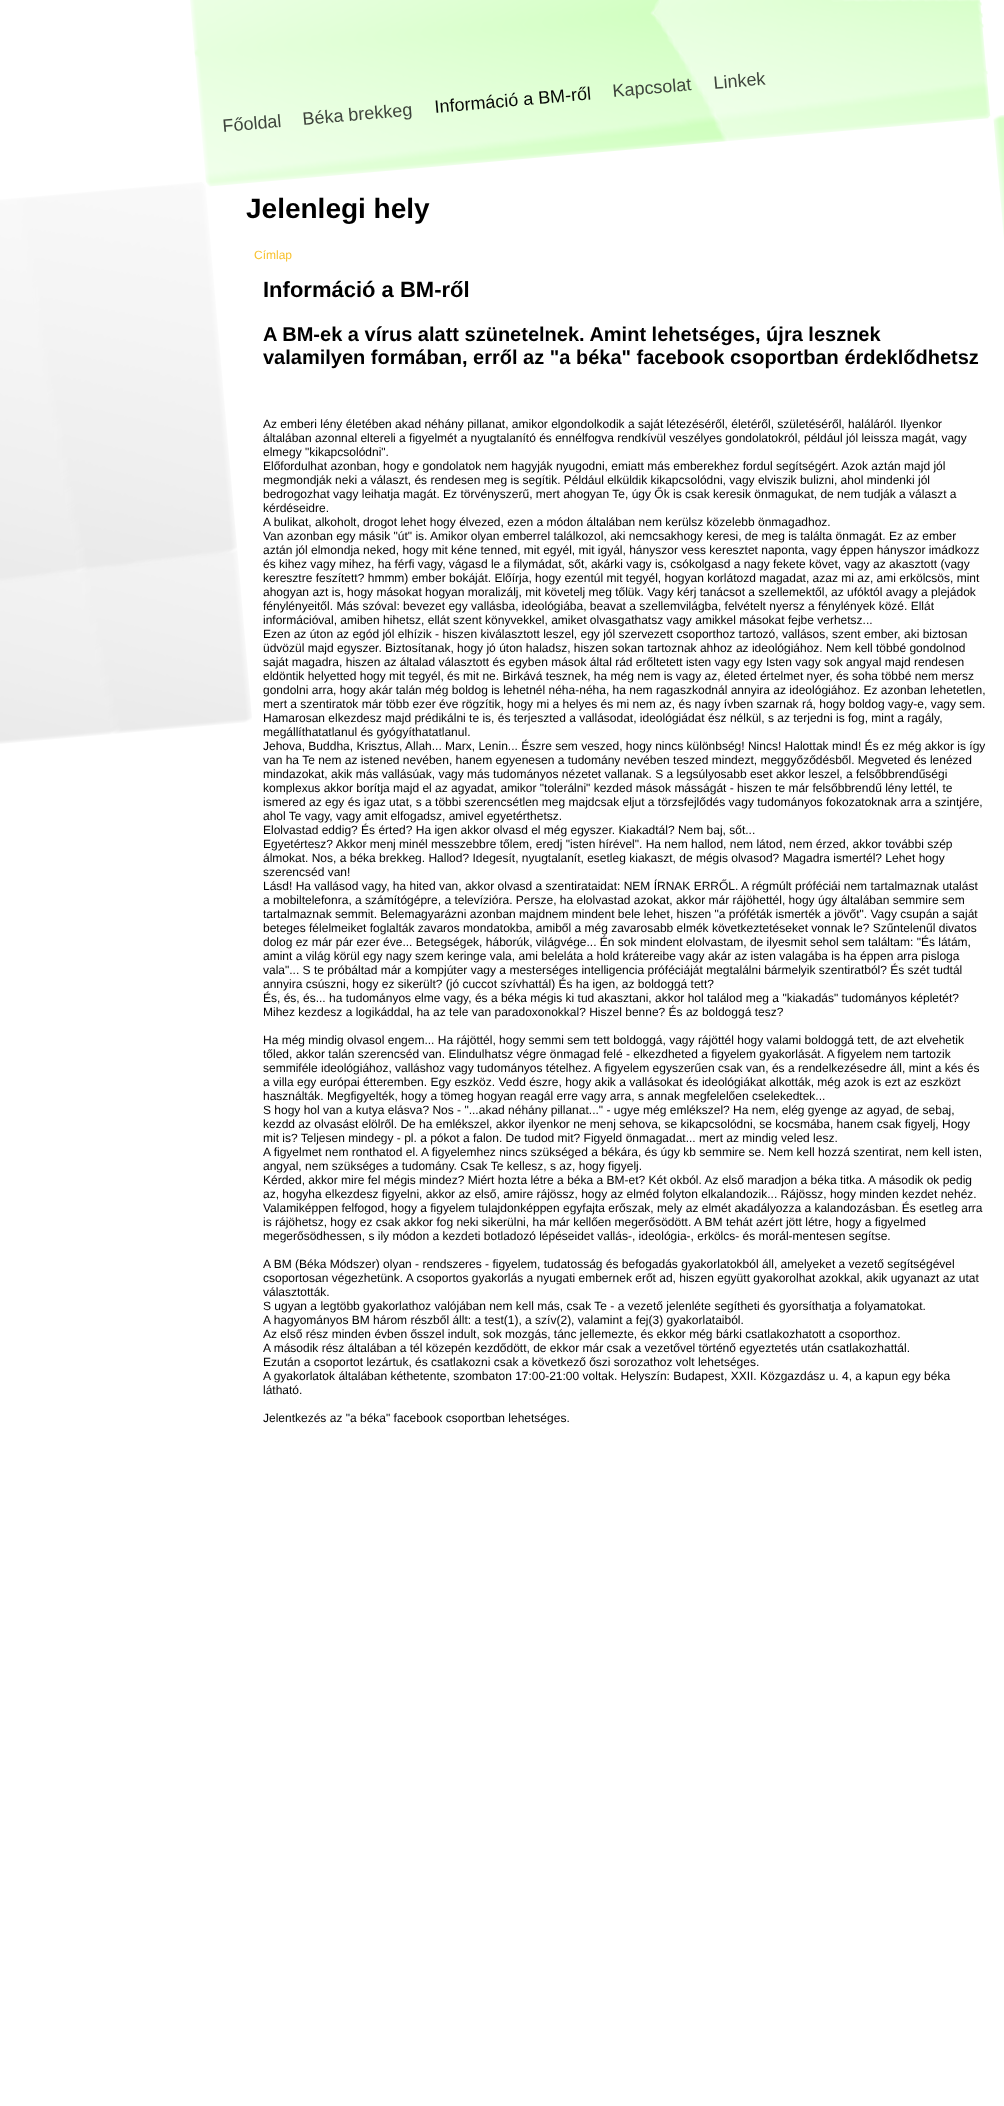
async function draw(canvas) {
  canvas.width = 1004;
  canvas.height = 2106;
  const ctx = canvas.getContext('2d');
  ctx.miterLimit = 4;
  ctx.fontKerning = 'normal';
  function label(s, x, y, font, color) {
    ctx.font = font;
    ctx.fillStyle = color;
    ctx.fillText(s, x, y);
  }
  function rect(x, y, w, h, color) {
    ctx.fillStyle = color;
    ctx.fillRect(x, y, w, h);
  }
  async function image(src, x, y, w, h) {
    const img = new Image();
    img.src = src;
    await img.decode();
    ctx.drawImage(img, x, y, w, h);
  }

  rect(0, 0, 1004, 2106, '#fff');
  await image('assets/img1.png', 0, 0, 1004, 744);
  ctx.font = '18px Liberation Sans';
  ctx.fillStyle = '#3e443c';
  ctx.save();
  ctx.translate(223, 132);
  ctx.rotate(-5 * Math.PI / 180);
  ctx.fillText('Főoldal', 0, 0);
  ctx.restore();
  ctx.save();
  ctx.translate(303, 125);
  ctx.rotate(-5 * Math.PI / 180);
  ctx.fillText('Béka brekkeg', 0, 0);
  ctx.restore();
  ctx.fillStyle = '#070807';
  ctx.save();
  ctx.translate(435, 113);
  ctx.rotate(-5 * Math.PI / 180);
  ctx.fillText('Információ a BM-ről', 0, 0);
  ctx.restore();
  ctx.fillStyle = '#3e443c';
  ctx.save();
  ctx.translate(613, 97);
  ctx.rotate(-5 * Math.PI / 180);
  ctx.fillText('Kapcsolat', 0, 0);
  ctx.restore();
  ctx.save();
  ctx.translate(714, 89);
  ctx.rotate(-5 * Math.PI / 180);
  ctx.fillText('Linkek', 0, 0);
  ctx.restore();
  label('Jelenlegi hely', 246, 218, 'bold 28px Liberation Sans', '#000');
  label('Címlap', 254, 259, '12px Liberation Sans', '#f8c230');
  label('Információ a BM-ről', 263, 297, 'bold 22px Liberation Sans', '#000');
  label('A BM-ek a vírus alatt szünetelnek. Amint lehetséges, újra lesznek', 263, 341, 'bold 20px Liberation Sans', '#000');
  label('valamilyen formában, erről az "a béka" facebook csoportban érdeklődhetsz', 263, 364, 'bold 20px Liberation Sans', '#000');
  label('Az emberi lény életében akad néhány pillanat, amikor elgondolkodik a saját létezéséről, életéről, születéséről, haláláról. Ilyenkor', 263, 428, '12px Liberation Sans', '#000');
  label('általában azonnal eltereli a figyelmét a nyugtalanító és ennélfogva rendkívül veszélyes gondolatokról, például jól leissza magát, vagy', 263, 442, '12px Liberation Sans', '#000');
  label('elmegy "kikapcsolódni".', 263, 456, '12px Liberation Sans', '#000');
  label('Előfordulhat azonban, hogy e gondolatok nem hagyják nyugodni, emiatt más emberekhez fordul segítségért. Azok aztán majd jól', 263, 470, '12px Liberation Sans', '#000');
  label('megmondják neki a választ, és rendesen meg is segítik. Például elküldik kikapcsolódni, vagy elviszik bulizni, ahol mindenki jól', 263, 484, '12px Liberation Sans', '#000');
  label('bedrogozhat vagy leihatja magát. Ez törvényszerű, mert ahogyan Te, úgy Ők is csak keresik önmagukat, de nem tudják a választ a', 263, 498, '12px Liberation Sans', '#000');
  label('kérdéseidre.', 263, 512, '12px Liberation Sans', '#000');
  label('A bulikat, alkoholt, drogot lehet hogy élvezed, ezen a módon általában nem kerülsz közelebb önmagadhoz.', 263, 526, '12px Liberation Sans', '#000');
  label('Van azonban egy másik "út" is. Amikor olyan emberrel találkozol, aki nemcsakhogy keresi, de meg is találta önmagát. Ez az ember', 263, 540, '12px Liberation Sans', '#000');
  label('aztán jól elmondja neked, hogy mit kéne tenned, mit egyél, mit igyál, hányszor vess keresztet naponta, vagy éppen hányszor imádkozz', 263, 554, '12px Liberation Sans', '#000');
  label('és kihez vagy mihez, ha férfi vagy, vágasd le a filymádat, sőt, akárki vagy is, csókolgasd a nagy fekete követ, vagy az akasztott (vagy', 263, 568, '12px Liberation Sans', '#000');
  label('keresztre feszített? hmmm) ember bokáját. Előírja, hogy ezentúl mit tegyél, hogyan korlátozd magadat, azaz mi az, ami erkölcsös, mint', 263, 582, '12px Liberation Sans', '#000');
  label('ahogyan azt is, hogy másokat hogyan moralizálj, mit követelj meg tőlük. Vagy kérj tanácsot a szellemektől, az ufóktól avagy a plejádok', 263, 596, '12px Liberation Sans', '#000');
  label('fénylényeitől. Más szóval: bevezet egy vallásba, ideológiába, beavat a szellemvilágba, felvételt nyersz a fénylények közé. Ellát', 263, 610, '12px Liberation Sans', '#000');
  label('információval, amiben hihetsz, ellát szent könyvekkel, amiket olvasgathatsz vagy amikkel másokat fejbe verhetsz...', 263, 624, '12px Liberation Sans', '#000');
  label('Ezen az úton az egód jól elhízik - hiszen kiválasztott leszel, egy jól szervezett csoporthoz tartozó, vallásos, szent ember, aki biztosan', 263, 638, '12px Liberation Sans', '#000');
  label('üdvözül majd egyszer. Biztosítanak, hogy jó úton haladsz, hiszen sokan tartoznak ahhoz az ideológiához. Nem kell többé gondolnod', 263, 652, '12px Liberation Sans', '#000');
  label('saját magadra, hiszen az általad választott és egyben mások által rád erőltetett isten vagy egy Isten vagy sok angyal majd rendesen', 263, 666, '12px Liberation Sans', '#000');
  label('eldöntik helyetted hogy mit tegyél, és mit ne. Birkává tesznek, ha még nem is vagy az, életed értelmet nyer, és soha többé nem mersz', 263, 680, '12px Liberation Sans', '#000');
  label('gondolni arra, hogy akár talán még boldog is lehetnél néha-néha, ha nem ragaszkodnál annyira az ideológiához. Ez azonban lehetetlen,', 263, 694, '12px Liberation Sans', '#000');
  label('mert a szentiratok már több ezer éve rögzítik, hogy mi a helyes és mi nem az, és nagy ívben szarnak rá, hogy boldog vagy-e, vagy sem.', 263, 708, '12px Liberation Sans', '#000');
  label('Hamarosan elkezdesz majd prédikálni te is, és terjeszted a vallásodat, ideológiádat ész nélkül, s az terjedni is fog, mint a ragály,', 263, 722, '12px Liberation Sans', '#000');
  label('megállíthatatlanul és gyógyíthatatlanul.', 263, 736, '12px Liberation Sans', '#000');
  label('Jehova, Buddha, Krisztus, Allah... Marx, Lenin... Észre sem veszed, hogy nincs különbség! Nincs! Halottak mind! És ez még akkor is így', 263, 750, '12px Liberation Sans', '#000');
  label('van ha Te nem az istened nevében, hanem egyenesen a tudomány nevében teszed mindezt, meggyőződésből. Megveted és lenézed', 263, 764, '12px Liberation Sans', '#000');
  label('mindazokat, akik más vallásúak, vagy más tudományos nézetet vallanak. S a legsúlyosabb eset akkor leszel, a felsőbbrendűségi', 263, 778, '12px Liberation Sans', '#000');
  label('komplexus akkor borítja majd el az agyadat, amikor "tolerálni" kezded mások másságát - hiszen te már felsőbbrendű lény lettél, te', 263, 792, '12px Liberation Sans', '#000');
  label('ismered az egy és igaz utat, s a többi szerencsétlen meg majdcsak eljut a törzsfejlődés vagy tudományos fokozatoknak arra a szintjére,', 263, 806, '12px Liberation Sans', '#000');
  label('ahol Te vagy, vagy amit elfogadsz, amivel egyetérthetsz.', 263, 820, '12px Liberation Sans', '#000');
  label('Elolvastad eddig? És érted? Ha igen akkor olvasd el még egyszer. Kiakadtál? Nem baj, sőt...', 263, 834, '12px Liberation Sans', '#000');
  label('Egyetértesz? Akkor menj minél messzebbre tőlem, eredj "isten hírével". Ha nem hallod, nem látod, nem érzed, akkor további szép', 263, 848, '12px Liberation Sans', '#000');
  label('álmokat. Nos, a béka brekkeg. Hallod? Idegesít, nyugtalanít, esetleg kiakaszt, de mégis olvasod? Magadra ismertél? Lehet hogy', 263, 862, '12px Liberation Sans', '#000');
  label('szerencséd van!', 263, 876, '12px Liberation Sans', '#000');
  label('Lásd! Ha vallásod vagy, ha hited van, akkor olvasd a szentirataidat: NEM ÍRNAK ERRŐL. A régmúlt próféciái nem tartalmaznak utalást', 263, 890, '12px Liberation Sans', '#000');
  label('a mobiltelefonra, a számítógépre, a televízióra. Persze, ha elolvastad azokat, akkor már rájöhettél, hogy úgy általában semmire sem', 263, 904, '12px Liberation Sans', '#000');
  label('tartalmaznak semmit. Belemagyarázni azonban majdnem mindent bele lehet, hiszen "a próféták ismerték a jövőt". Vagy csupán a saját', 263, 918, '12px Liberation Sans', '#000');
  label('beteges félelmeiket foglalták zavaros mondatokba, amiből a még zavarosabb elmék következtetéseket vonnak le? Szűntelenűl divatos', 263, 932, '12px Liberation Sans', '#000');
  label('dolog ez már pár ezer éve... Betegségek, háborúk, világvége... Én sok mindent elolvastam, de ilyesmit sehol sem találtam: "És látám,', 263, 946, '12px Liberation Sans', '#000');
  label('amint a világ körül egy nagy szem keringe vala, ami beleláta a hold krátereibe vagy akár az isten valagába is ha éppen arra pisloga', 263, 960, '12px Liberation Sans', '#000');
  label('vala"... S te próbáltad már a kompjúter vagy a mesterséges intelligencia próféciáját megtalálni bármelyik szentiratból? És szét tudtál', 263, 974, '12px Liberation Sans', '#000');
  label('annyira csúszni, hogy ez sikerült? (jó cuccot szívhattál) És ha igen, az boldoggá tett?', 263, 988, '12px Liberation Sans', '#000');
  label('És, és, és... ha tudományos elme vagy, és a béka mégis ki tud akasztani, akkor hol találod meg a "kiakadás" tudományos képletét?', 263, 1002, '12px Liberation Sans', '#000');
  label('Mihez kezdesz a logikáddal, ha az tele van paradoxonokkal? Hiszel benne? És az boldoggá tesz?', 263, 1016, '12px Liberation Sans', '#000');
  label('Ha még mindig olvasol engem... Ha rájöttél, hogy semmi sem tett boldoggá, vagy rájöttél hogy valami boldoggá tett, de azt elvehetik', 263, 1044, '12px Liberation Sans', '#000');
  label('tőled, akkor talán szerencséd van. Elindulhatsz végre önmagad felé - elkezdheted a figyelem gyakorlását. A figyelem nem tartozik', 263, 1058, '12px Liberation Sans', '#000');
  label('semmiféle ideológiához, valláshoz vagy tudományos tételhez. A figyelem egyszerűen csak van, és a rendelkezésedre áll, mint a kés és', 263, 1072, '12px Liberation Sans', '#000');
  label('a villa egy európai étteremben. Egy eszköz. Vedd észre, hogy akik a vallásokat és ideológiákat alkották, még azok is ezt az eszközt', 263, 1086, '12px Liberation Sans', '#000');
  label('használták. Megfigyelték, hogy a tömeg hogyan reagál erre vagy arra, s annak megfelelően cselekedtek...', 263, 1100, '12px Liberation Sans', '#000');
  label('S hogy hol van a kutya elásva? Nos - "...akad néhány pillanat..." - ugye még emlékszel? Ha nem, elég gyenge az agyad, de sebaj,', 263, 1114, '12px Liberation Sans', '#000');
  label('kezdd az olvasást elölről. De ha emlékszel, akkor ilyenkor ne menj sehova, se kikapcsolódni, se kocsmába, hanem csak figyelj, Hogy', 263, 1128, '12px Liberation Sans', '#000');
  label('mit is? Teljesen mindegy - pl. a pókot a falon. De tudod mit? Figyeld önmagadat... mert az mindig veled lesz.', 263, 1142, '12px Liberation Sans', '#000');
  label('A figyelmet nem ronthatod el. A figyelemhez nincs szükséged a békára, és úgy kb semmire se. Nem kell hozzá szentirat, nem kell isten,', 263, 1156, '12px Liberation Sans', '#000');
  label('angyal, nem szükséges a tudomány. Csak Te kellesz, s az, hogy figyelj.', 263, 1170, '12px Liberation Sans', '#000');
  label('Kérded, akkor mire fel mégis mindez? Miért hozta létre a béka a BM-et? Két okból. Az első maradjon a béka titka. A második ok pedig', 263, 1184, '12px Liberation Sans', '#000');
  label('az, hogyha elkezdesz figyelni, akkor az első, amire rájössz, hogy az elméd folyton elkalandozik... Rájössz, hogy minden kezdet nehéz.', 263, 1198, '12px Liberation Sans', '#000');
  label('Valamiképpen felfogod, hogy a figyelem tulajdonképpen egyfajta erőszak, mely az elmét akadályozza a kalandozásban. És esetleg arra', 263, 1212, '12px Liberation Sans', '#000');
  label('is rájöhetsz, hogy ez csak akkor fog neki sikerülni, ha már kellően megerősödött. A BM tehát azért jött létre, hogy a figyelmed', 263, 1226, '12px Liberation Sans', '#000');
  label('megerősödhessen, s ily módon a kezdeti botladozó lépéseidet vallás-, ideológia-, erkölcs- és morál-mentesen segítse.', 263, 1240, '12px Liberation Sans', '#000');
  label('A BM (Béka Módszer) olyan - rendszeres - figyelem, tudatosság és befogadás gyakorlatokból áll, amelyeket a vezető segítségével', 263, 1268, '12px Liberation Sans', '#000');
  label('csoportosan végezhetünk. A csoportos gyakorlás a nyugati embernek erőt ad, hiszen együtt gyakorolhat azokkal, akik ugyanazt az utat', 263, 1282, '12px Liberation Sans', '#000');
  label('választották.', 263, 1296, '12px Liberation Sans', '#000');
  label('S ugyan a legtöbb gyakorlathoz valójában nem kell más, csak Te - a vezető jelenléte segítheti és gyorsíthatja a folyamatokat.', 263, 1310, '12px Liberation Sans', '#000');
  label('A hagyományos BM három részből állt: a test(1), a szív(2), valamint a fej(3) gyakorlataiból.', 263, 1324, '12px Liberation Sans', '#000');
  label('Az első rész minden évben ősszel indult, sok mozgás, tánc jellemezte, és ekkor még bárki csatlakozhatott a csoporthoz.', 263, 1338, '12px Liberation Sans', '#000');
  label('A második rész általában a tél közepén kezdődött, de ekkor már csak a vezetővel történő egyeztetés után csatlakozhattál.', 263, 1352, '12px Liberation Sans', '#000');
  label('Ezután a csoportot lezártuk, és csatlakozni csak a következő őszi sorozathoz volt lehetséges.', 263, 1366, '12px Liberation Sans', '#000');
  label('A gyakorlatok általában kéthetente, szombaton 17:00-21:00 voltak. Helyszín: Budapest, XXII. Közgazdász u. 4, a kapun egy béka', 263, 1380, '12px Liberation Sans', '#000');
  label('látható.', 263, 1394, '12px Liberation Sans', '#000');
  label('Jelentkezés az "a béka" facebook csoportban lehetséges.', 263, 1422, '12px Liberation Sans', '#000');
}

draw(document.querySelector('canvas'));
